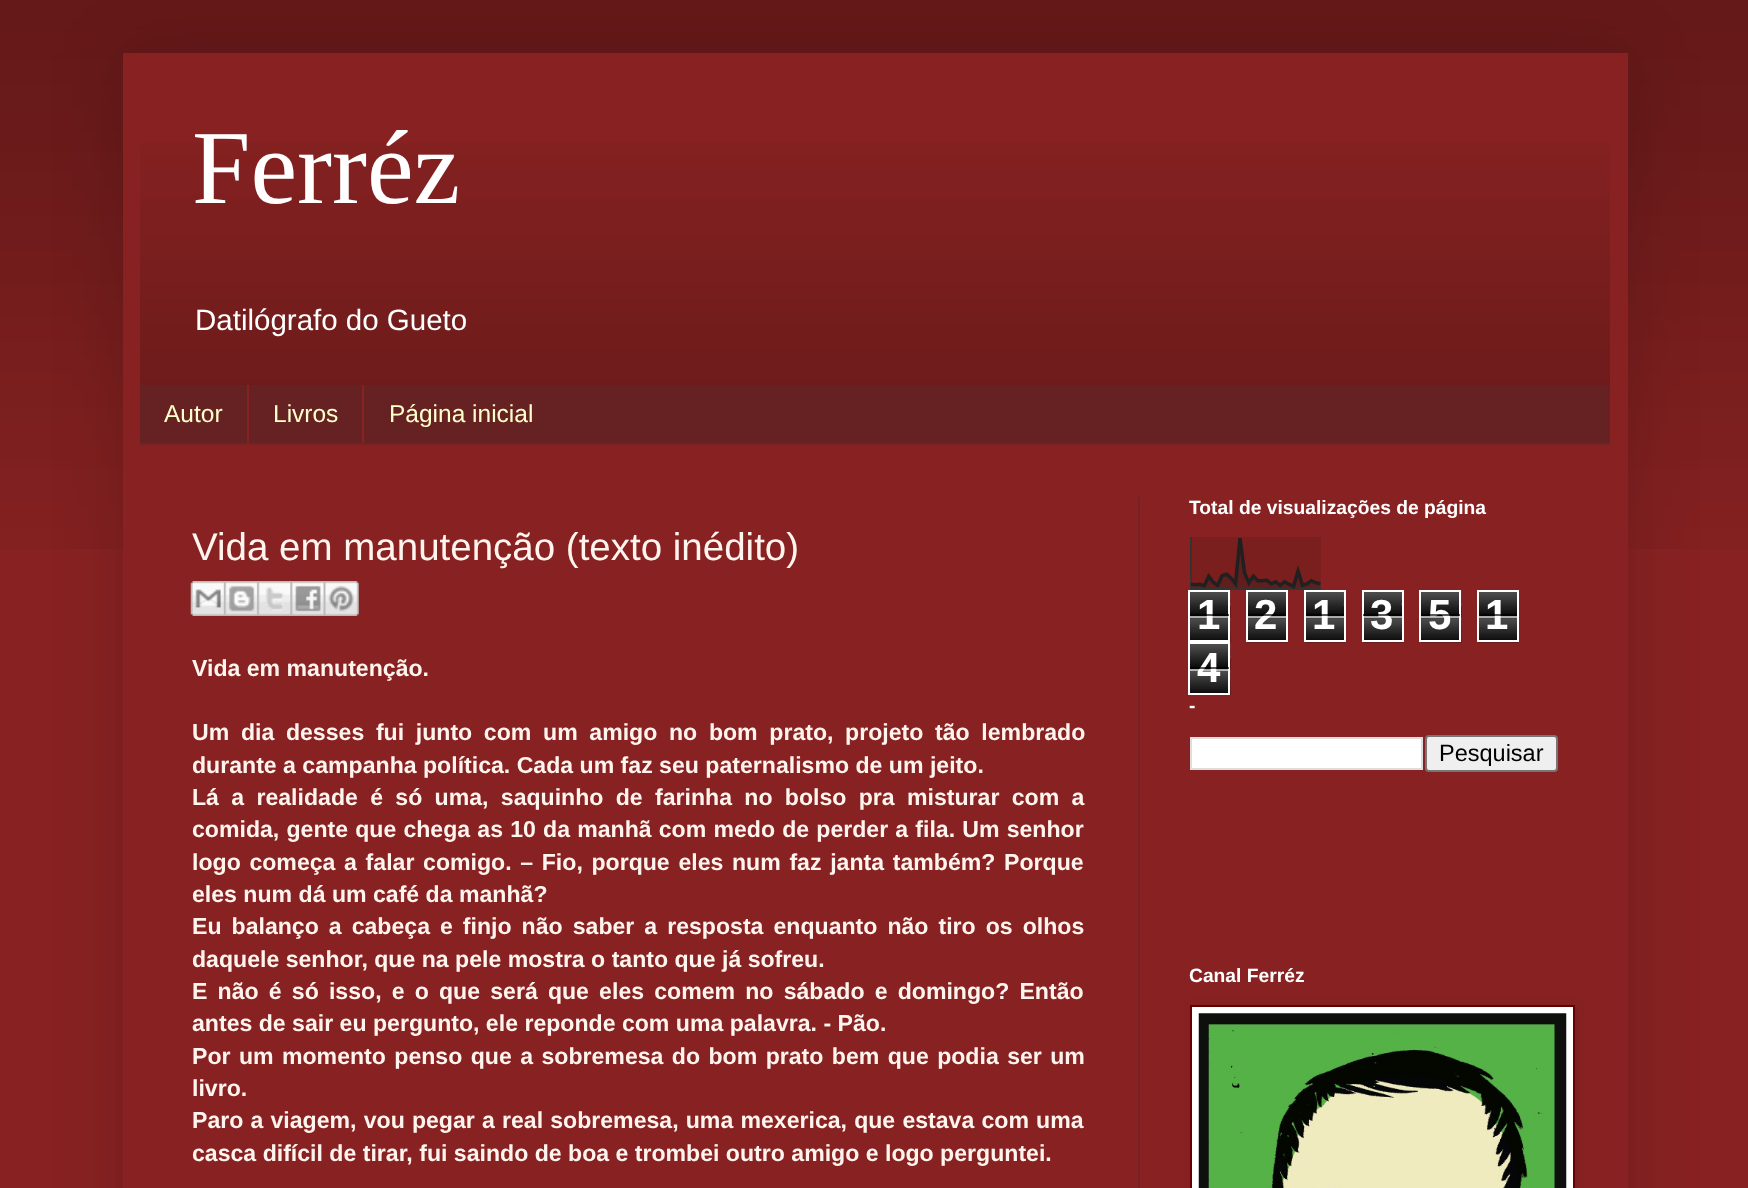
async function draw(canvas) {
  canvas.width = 1748;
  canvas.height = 1188;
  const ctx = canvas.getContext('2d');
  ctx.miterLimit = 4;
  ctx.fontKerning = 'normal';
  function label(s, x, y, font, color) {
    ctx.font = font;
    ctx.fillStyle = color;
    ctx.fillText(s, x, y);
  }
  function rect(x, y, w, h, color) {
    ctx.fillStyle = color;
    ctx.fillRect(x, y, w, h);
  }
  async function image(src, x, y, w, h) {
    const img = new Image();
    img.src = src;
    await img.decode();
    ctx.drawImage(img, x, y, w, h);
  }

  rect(0, 0, 1748, 1188, '#822');
  await image('assets/img1.png', 0, 0, 1748, 549);
  ctx.fillStyle = '#00000026';
  ctx.filter = 'blur(35px)';
  ctx.beginPath();
  ctx.rect(123, 53, 1505, 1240);
  ctx.fill();
  ctx.filter = 'none';
  rect(123, 53, 1505, 1135, '#822');
  await image('assets/img2.png', 140, 143, 1470, 242);
  label('Ferréz', 192, 203, '105px Liberation Serif', '#fff');
  label('Datilógrafo do Gueto', 195, 330, '29.5px Liberation Sans', '#fff');
  rect(140, 385, 1470, 58, '#622');
  rect(140, 443, 1470, 2, '#722');
  label('Autor', 164, 422, '24.5px Liberation Sans', '#ffc');
  rect(247, 385, 2, 58, '#822');
  label('Livros', 273, 422, '24.5px Liberation Sans', '#ffc');
  rect(362, 385, 2, 58, '#822');
  label('Página inicial', 389, 422, '24.5px Liberation Sans', '#ffc');
  rect(1138, 497, 2, 691, '#722');
  label('Vida em manutenção (texto inédito)', 192, 560, '38.5px Liberation Sans', '#fff5ee');
  await image('assets/img3.png', 190, 581, 34, 35);
  await image('assets/img4.png', 224, 581, 34, 35);
  await image('assets/img5.png', 257, 581, 34, 35);
  await image('assets/img6.png', 290, 581, 34, 35);
  await image('assets/img7.png', 323, 581, 36, 35);
  label('Vida em manutenção.', 192, 676, 'bold 23.1px Liberation Sans', '#fff5ee');
  ctx.wordSpacing = '5.25px';
  label('Um dia desses fui junto com um amigo no bom prato, projeto tão lembrado', 192, 740, 'bold 23.1px Liberation Sans', '#fff5ee');
  ctx.wordSpacing = '0px';
  label('durante a campanha política. Cada um faz seu paternalismo de um jeito.', 192, 773, 'bold 23.1px Liberation Sans', '#fff5ee');
  ctx.wordSpacing = '5.9px';
  label('Lá a realidade é só uma, saquinho de farinha no bolso pra misturar com a', 192, 805, 'bold 23.1px Liberation Sans', '#fff5ee');
  ctx.wordSpacing = '0.75px';
  label('comida, gente que chega as 10 da manhã com medo de perder a fila. Um senhor', 192, 837, 'bold 23.1px Liberation Sans', '#fff5ee');
  ctx.wordSpacing = '2.25px';
  label('logo começa a falar comigo. – Fio, porque eles num faz janta também? Porque', 192, 870, 'bold 23.1px Liberation Sans', '#fff5ee');
  ctx.wordSpacing = '0px';
  label('eles num dá um café da manhã?', 192, 902, 'bold 23.1px Liberation Sans', '#fff5ee');
  ctx.wordSpacing = '3.6px';
  label('Eu balanço a cabeça e finjo não saber a resposta enquanto não tiro os olhos', 192, 934, 'bold 23.1px Liberation Sans', '#fff5ee');
  ctx.wordSpacing = '0px';
  label('daquele senhor, que na pele mostra o tanto que já sofreu.', 192, 967, 'bold 23.1px Liberation Sans', '#fff5ee');
  ctx.wordSpacing = '3.75px';
  label('E não é só isso, e o que será que eles comem no sábado e domingo? Então', 192, 999, 'bold 23.1px Liberation Sans', '#fff5ee');
  ctx.wordSpacing = '0px';
  label('antes de sair eu pergunto, ele reponde com uma palavra. - Pão.', 192, 1031, 'bold 23.1px Liberation Sans', '#fff5ee');
  ctx.wordSpacing = '2px';
  label('Por um momento penso que a sobremesa do bom prato bem que podia ser um', 192, 1064, 'bold 23.1px Liberation Sans', '#fff5ee');
  ctx.wordSpacing = '0px';
  label('livro.', 192, 1096, 'bold 23.1px Liberation Sans', '#fff5ee');
  ctx.wordSpacing = '0.75px';
  label('Paro a viagem, vou pegar a real sobremesa, uma mexerica, que estava com uma', 192, 1128, 'bold 23.1px Liberation Sans', '#fff5ee');
  ctx.wordSpacing = '0px';
  label('casca difícil de tirar, fui saindo de boa e trombei outro amigo e logo perguntei.', 192, 1161, 'bold 23.1px Liberation Sans', '#fff5ee');
  label('Total de visualizações de página', 1189, 514, 'bold 19.25px Liberation Sans', '#fff');
  await image('assets/img8.png', 1190, 537, 131, 53);
  await image('assets/img9.png', 1190, 591, 41, 52);
  ctx.strokeStyle = '#fff';
  ctx.lineWidth = 2;
  ctx.strokeRect(1189, 591, 40, 50);
  label('1', 1197, 629, 'bold 42px Liberation Sans', '#fff');
  rect(1190, 614, 39, 2, '#000000a6');
  rect(1190, 616, 39, 2, '#ffffffa6');
  await image('assets/img10.png', 1247, 592, 41, 51);
  ctx.strokeRect(1247, 591, 40, 50);
  label('2', 1254, 629, 'bold 42px Liberation Sans', '#fff');
  rect(1248, 614, 38, 2, '#000000a6');
  rect(1248, 616, 38, 2, '#ffffffa6');
  await image('assets/img11.png', 1305, 592, 41, 51);
  ctx.strokeRect(1305, 591, 40, 50);
  label('1', 1312, 629, 'bold 42px Liberation Sans', '#fff');
  rect(1306, 614, 38, 2, '#000000a6');
  rect(1306, 616, 38, 2, '#ffffffa6');
  await image('assets/img12.png', 1363, 592, 41, 51);
  ctx.strokeRect(1363, 591, 40, 50);
  label('3', 1370, 629, 'bold 42px Liberation Sans', '#fff');
  rect(1363, 614, 39, 2, '#000000a6');
  rect(1363, 616, 39, 2, '#ffffffa6');
  await image('assets/img9.png', 1421, 591, 41, 52);
  ctx.strokeRect(1420, 591, 40, 50);
  label('5', 1428, 629, 'bold 42px Liberation Sans', '#fff');
  rect(1421, 614, 39, 2, '#000000a6');
  rect(1421, 616, 39, 2, '#ffffffa6');
  await image('assets/img10.png', 1478, 592, 41, 51);
  ctx.strokeRect(1478, 591, 40, 50);
  label('1', 1485, 629, 'bold 42px Liberation Sans', '#fff');
  rect(1479, 614, 38, 2, '#000000a6');
  rect(1479, 616, 38, 2, '#ffffffa6');
  await image('assets/img13.png', 1190, 644, 41, 51);
  ctx.strokeRect(1189, 643, 40, 51);
  label('4', 1197, 682, 'bold 42px Liberation Sans', '#fff');
  rect(1190, 667, 39, 2, '#000000a6');
  rect(1190, 669, 39, 2, '#ffffffa6');
  label('-', 1189, 712, 'bold 19.25px Liberation Sans', '#fff');
  ctx.beginPath();
  ctx.rect(1191, 738, 231, 31);
  ctx.fill();
  ctx.strokeStyle = '#ddd';
  ctx.stroke();
  ctx.fillStyle = '#efefef';
  ctx.beginPath();
  ctx.roundRect(1426, 736, 131, 35, 3);
  ctx.fill();
  ctx.strokeStyle = '#767676';
  ctx.stroke();
  label('Pesquisar', 1439, 761, '23.5px Liberation Sans', '#000');
  label('Canal Ferréz', 1189, 982, 'bold 19.25px Liberation Sans', '#fff');
  ctx.fillStyle = '#0000001a';
  ctx.filter = 'blur(4.5px)';
  ctx.beginPath();
  ctx.rect(1192, 1006, 385, 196);
  ctx.fill();
  ctx.filter = 'none';
  ctx.fillStyle = '#fff';
  ctx.beginPath();
  ctx.rect(1191, 1006, 383, 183);
  ctx.fill();
  ctx.strokeStyle = '#600';
  ctx.stroke();
  await image('assets/img14.png', 1198, 1013, 369, 175);
}

draw(document.querySelector('canvas'));
